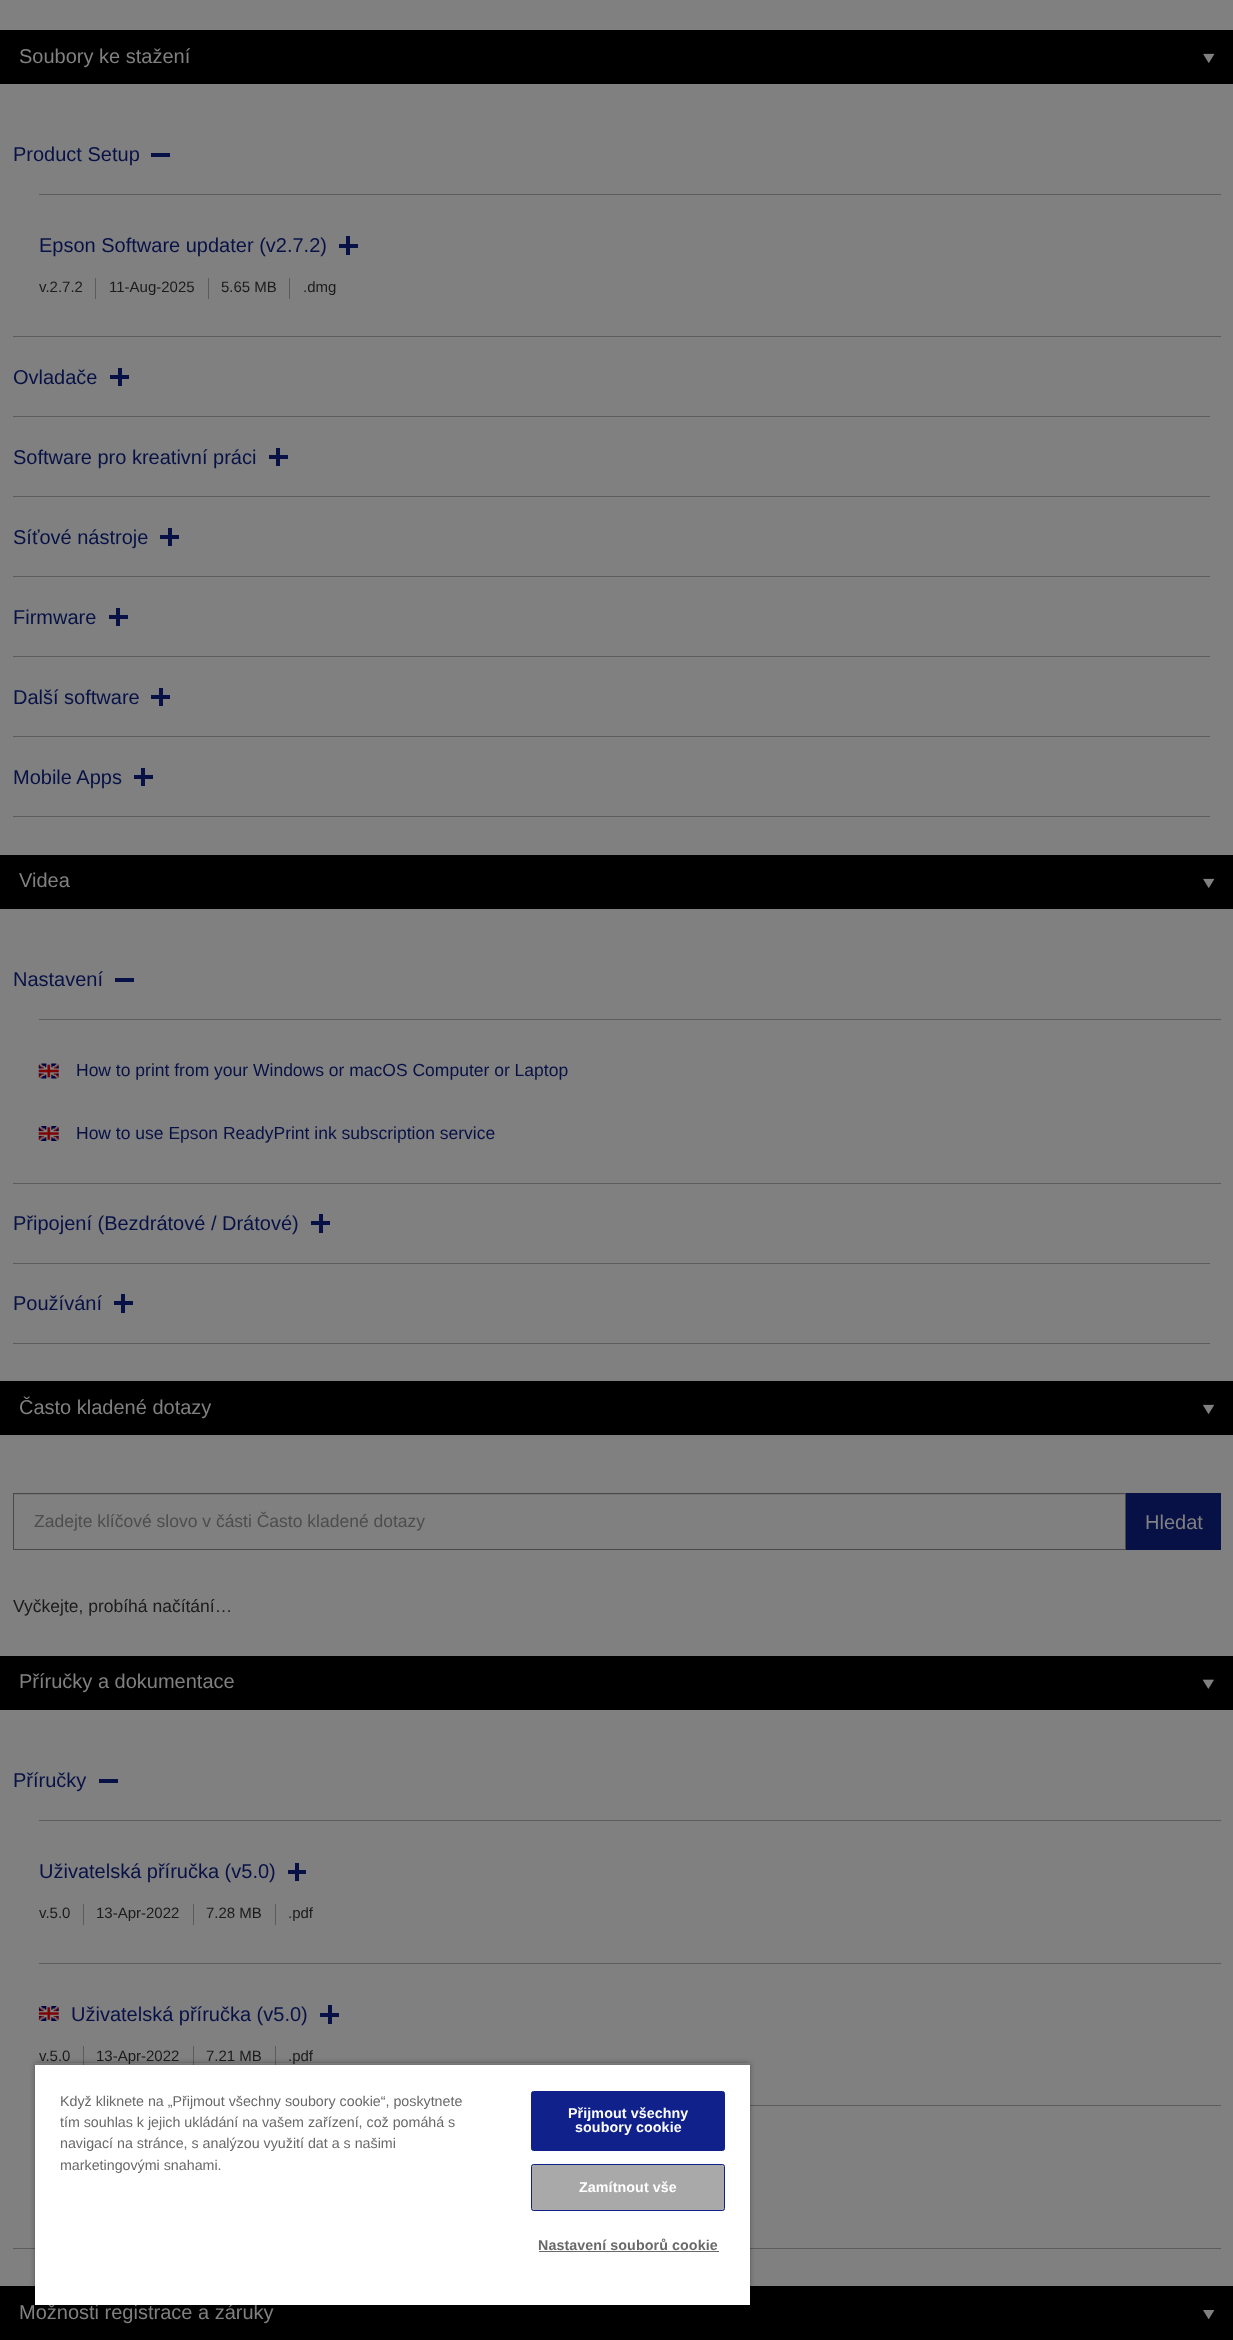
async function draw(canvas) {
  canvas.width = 1233;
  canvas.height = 2340;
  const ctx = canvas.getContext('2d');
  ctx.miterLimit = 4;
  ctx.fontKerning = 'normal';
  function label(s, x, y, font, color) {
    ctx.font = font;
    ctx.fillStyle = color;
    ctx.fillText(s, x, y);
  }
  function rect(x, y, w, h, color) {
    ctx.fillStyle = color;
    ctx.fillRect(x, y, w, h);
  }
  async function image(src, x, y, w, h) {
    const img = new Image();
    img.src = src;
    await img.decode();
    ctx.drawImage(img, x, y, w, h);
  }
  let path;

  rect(0, 0, 1233, 2340, '#808080');
  rect(0, 30, 1233, 54, '#000');
  label('Soubory ke stažení', 19, 63, '20px Liberation Sans', '#808080');
  await image('assets/img1.png', 1203, 53, 12, 10);
  rect(13, 336, 1208, 1, '#5e5c58');
  label('Product Setup', 13, 161, '20px Liberation Sans', '#081146');
  rect(151, 153, 19, 4, '#081146');
  rect(39, 194, 1182, 1, '#5e5c58');
  label('Epson Software updater (v2.7.2)', 39, 252, '20px Liberation Sans', '#081146');
  rect(346, 236, 4, 19, '#081146');
  rect(339, 244, 19, 4, '#081146');
  rect(95, 278, 1, 21, '#5e5c58');
  label('v.2.7.2', 39, 292, '15px Liberation Sans', '#1b1b1b');
  rect(208, 278, 1, 21, '#5e5c58');
  label('11-Aug-2025', 109, 292, '15px Liberation Sans', '#1b1b1b');
  rect(289, 278, 1, 21, '#5e5c58');
  label('5.65 MB', 221, 292, '15px Liberation Sans', '#1b1b1b');
  label('.dmg', 303, 292, '15px Liberation Sans', '#1b1b1b');
  rect(13, 416, 1197, 1, '#5e5c58');
  label('Ovladače', 13, 384, '20px Liberation Sans', '#081146');
  rect(118, 368, 4, 18, '#081146');
  rect(110, 375, 19, 4, '#081146');
  rect(13, 496, 1197, 1, '#5e5c58');
  label('Software pro kreativní práci', 13, 464, '20px Liberation Sans', '#081146');
  rect(276, 448, 4, 18, '#081146');
  rect(269, 455, 19, 4, '#081146');
  rect(13, 576, 1197, 1, '#5e5c58');
  label('Síťové nástroje', 13, 544, '20px Liberation Sans', '#081146');
  rect(168, 528, 4, 18, '#081146');
  rect(160, 535, 19, 4, '#081146');
  rect(13, 656, 1197, 1, '#5e5c58');
  label('Firmware', 13, 624, '20px Liberation Sans', '#081146');
  rect(116, 608, 4, 18, '#081146');
  rect(109, 615, 19, 4, '#081146');
  rect(13, 736, 1197, 1, '#5e5c58');
  label('Další software', 13, 704, '20px Liberation Sans', '#081146');
  rect(159, 688, 4, 18, '#081146');
  rect(151, 695, 19, 4, '#081146');
  rect(13, 816, 1197, 1, '#5e5c58');
  label('Mobile Apps', 13, 784, '20px Liberation Sans', '#081146');
  rect(141, 768, 4, 18, '#081146');
  rect(134, 775, 19, 4, '#081146');
  rect(0, 855, 1233, 54, '#000');
  label('Videa', 19, 887, '20px Liberation Sans', '#808080');
  await image('assets/img2.png', 1203, 878, 12, 10);
  rect(13, 1183, 1208, 1, '#5e5c58');
  label('Nastavení', 13, 986, '20px Liberation Sans', '#081146');
  rect(115, 978, 19, 4, '#081146');
  rect(39, 1019, 1182, 1, '#5e5c58');
  await image('assets/img3.png', 38, 1063, 21, 16);
  label('How to print from your Windows or macOS Computer or Laptop', 76, 1076, '17.5px Liberation Sans', '#081146');
  await image('assets/img4.png', 38, 1126, 21, 15);
  label('How to use Epson ReadyPrint ink subscription service', 76, 1139, '17.5px Liberation Sans', '#081146');
  rect(13, 1263, 1197, 1, '#5e5c58');
  label('Připojení (Bezdrátové / Drátové)', 13, 1230, '20px Liberation Sans', '#081146');
  rect(319, 1214, 4, 19, '#081146');
  rect(311, 1221, 19, 4, '#081146');
  rect(13, 1343, 1197, 1, '#5e5c58');
  label('Používání', 13, 1310, '20px Liberation Sans', '#081146');
  rect(121, 1294, 4, 19, '#081146');
  rect(114, 1301, 19, 4, '#081146');
  rect(0, 1381, 1233, 54, '#000');
  label('Často kladené dotazy', 19, 1414, '20px Liberation Sans', '#808080');
  await image('assets/img5.png', 1203, 1404, 11, 10);
  rect(14, 1494, 1111, 1, '#767676');
  ctx.strokeStyle = '#484a4e';
  ctx.strokeRect(13.5, 1493.5, 1112, 56);
  label('Zadejte klíčové slovo v části Často kladené dotazy', 34, 1527, '17.5px Liberation Sans', '#4d4d4d');
  rect(1126, 1493, 95, 57, '#081146');
  label('Hledat', 1145, 1529, '20px Liberation Sans', '#808080');
  label('Vyčkejte, probíhá načítání…', 13, 1612, '17.5px Liberation Sans', '#1b1b1b');
  rect(0, 1656, 1233, 54, '#000');
  label('Příručky a dokumentace', 19, 1688, '20px Liberation Sans', '#808080');
  await image('assets/img6.png', 1202, 1679, 12, 10);
  rect(13, 2248, 1208, 1, '#5e5c58');
  label('Příručky', 13, 1787, '20px Liberation Sans', '#081146');
  rect(99, 1779, 19, 4, '#081146');
  rect(39, 1820, 1182, 1, '#5e5c58');
  rect(39, 1963, 1182, 1, '#5e5c58');
  label('Uživatelská příručka (v5.0)', 39, 1878, '20px Liberation Sans', '#081146');
  rect(295, 1863, 4, 18, '#081146');
  rect(288, 1870, 18, 4, '#081146');
  rect(83, 1904, 1, 21, '#5e5c58');
  label('v.5.0', 39, 1918, '15px Liberation Sans', '#1b1b1b');
  rect(193, 1904, 1, 21, '#5e5c58');
  label('13-Apr-2022', 96, 1918, '15px Liberation Sans', '#1b1b1b');
  rect(275, 1904, 1, 21, '#5e5c58');
  label('7.28 MB', 206, 1918, '15px Liberation Sans', '#1b1b1b');
  label('.pdf', 288, 1918, '15px Liberation Sans', '#1b1b1b');
  rect(750, 2105, 471, 1, '#5e5c58');
  await image('assets/img7.png', 38, 2006, 21, 15);
  label('Uživatelská příručka (v5.0)', 71, 2021, '20px Liberation Sans', '#081146');
  rect(328, 2005, 4, 19, '#081146');
  rect(320, 2013, 19, 4, '#081146');
  rect(83, 2046, 1, 22, '#5e5c58');
  label('v.5.0', 39, 2061, '15px Liberation Sans', '#1b1b1b');
  rect(193, 2046, 1, 22, '#5e5c58');
  label('13-Apr-2022', 96, 2061, '15px Liberation Sans', '#1b1b1b');
  rect(275, 2046, 1, 22, '#5e5c58');
  label('7.21 MB', 206, 2061, '15px Liberation Sans', '#1b1b1b');
  label('.pdf', 288, 2061, '15px Liberation Sans', '#1b1b1b');
  rect(0, 2286, 1233, 54, '#000');
  label('Možnosti registrace a záruky', 19, 2319, '20px Liberation Sans', '#808080');
  await image('assets/img8.png', 1203, 2310, 12, 10);
  ctx.save();
  path = new Path2D('M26 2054H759V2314H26ZM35 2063H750V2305H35Z');
  ctx.clip(path, 'evenodd');
  ctx.fillStyle = '#00000059';
  ctx.filter = 'blur(2.5px)';
  ctx.beginPath();
  ctx.rect(35, 2063, 715, 242);
  ctx.fill();
  ctx.filter = 'none';
  ctx.restore();
  ctx.save();
  ctx.beginPath();
  ctx.rect(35, 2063, 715, 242);
  ctx.clip();
  ctx.fillStyle = '#00000033';
  ctx.filter = 'blur(2.5px)';
  ctx.beginPath();
  ctx.rect(35, 2065, 715, 240);
  ctx.fill();
  ctx.filter = 'none';
  ctx.restore();
  rect(35, 2065, 715, 240, '#fff');
  label('Když kliknete na „Přijmout všechny soubory cookie“, poskytnete', 60, 2106, '14.25px Liberation Sans', '#696969');
  label('tím souhlas k jejich ukládání na vašem zařízení, což pomáhá s', 60, 2127, '14.25px Liberation Sans', '#696969');
  label('navigací na stránce, s analýzou využití dat a s našimi', 60, 2148, '14.25px Liberation Sans', '#696969');
  label('marketingovými snahami.', 60, 2170, '14.25px Liberation Sans', '#696969');
  ctx.fillStyle = '#10218b';
  ctx.beginPath();
  ctx.roundRect(531.5, 2091.5, 193, 59, 2);
  ctx.fill();
  ctx.strokeStyle = '#10218b';
  ctx.stroke();
  ctx.letterSpacing = '0.1px';
  label('Přijmout všechny', 568, 2118, 'bold 14.25px Liberation Sans', '#fff');
  label('soubory cookie', 575, 2132, 'bold 14.25px Liberation Sans', '#fff');
  ctx.fillStyle = '#a9a9a9';
  ctx.beginPath();
  ctx.roundRect(531.5, 2164.5, 193, 46, 2);
  ctx.fill();
  ctx.stroke();
  label('Zamítnout vše', 579, 2192, 'bold 14.25px Liberation Sans', '#fff');
  label('Nastavení souborů cookie', 538, 2250, 'bold 14.25px Liberation Sans', '#696969');
  rect(539, 2251, 180, 1, '#696969');
}

draw(document.querySelector('canvas'));
